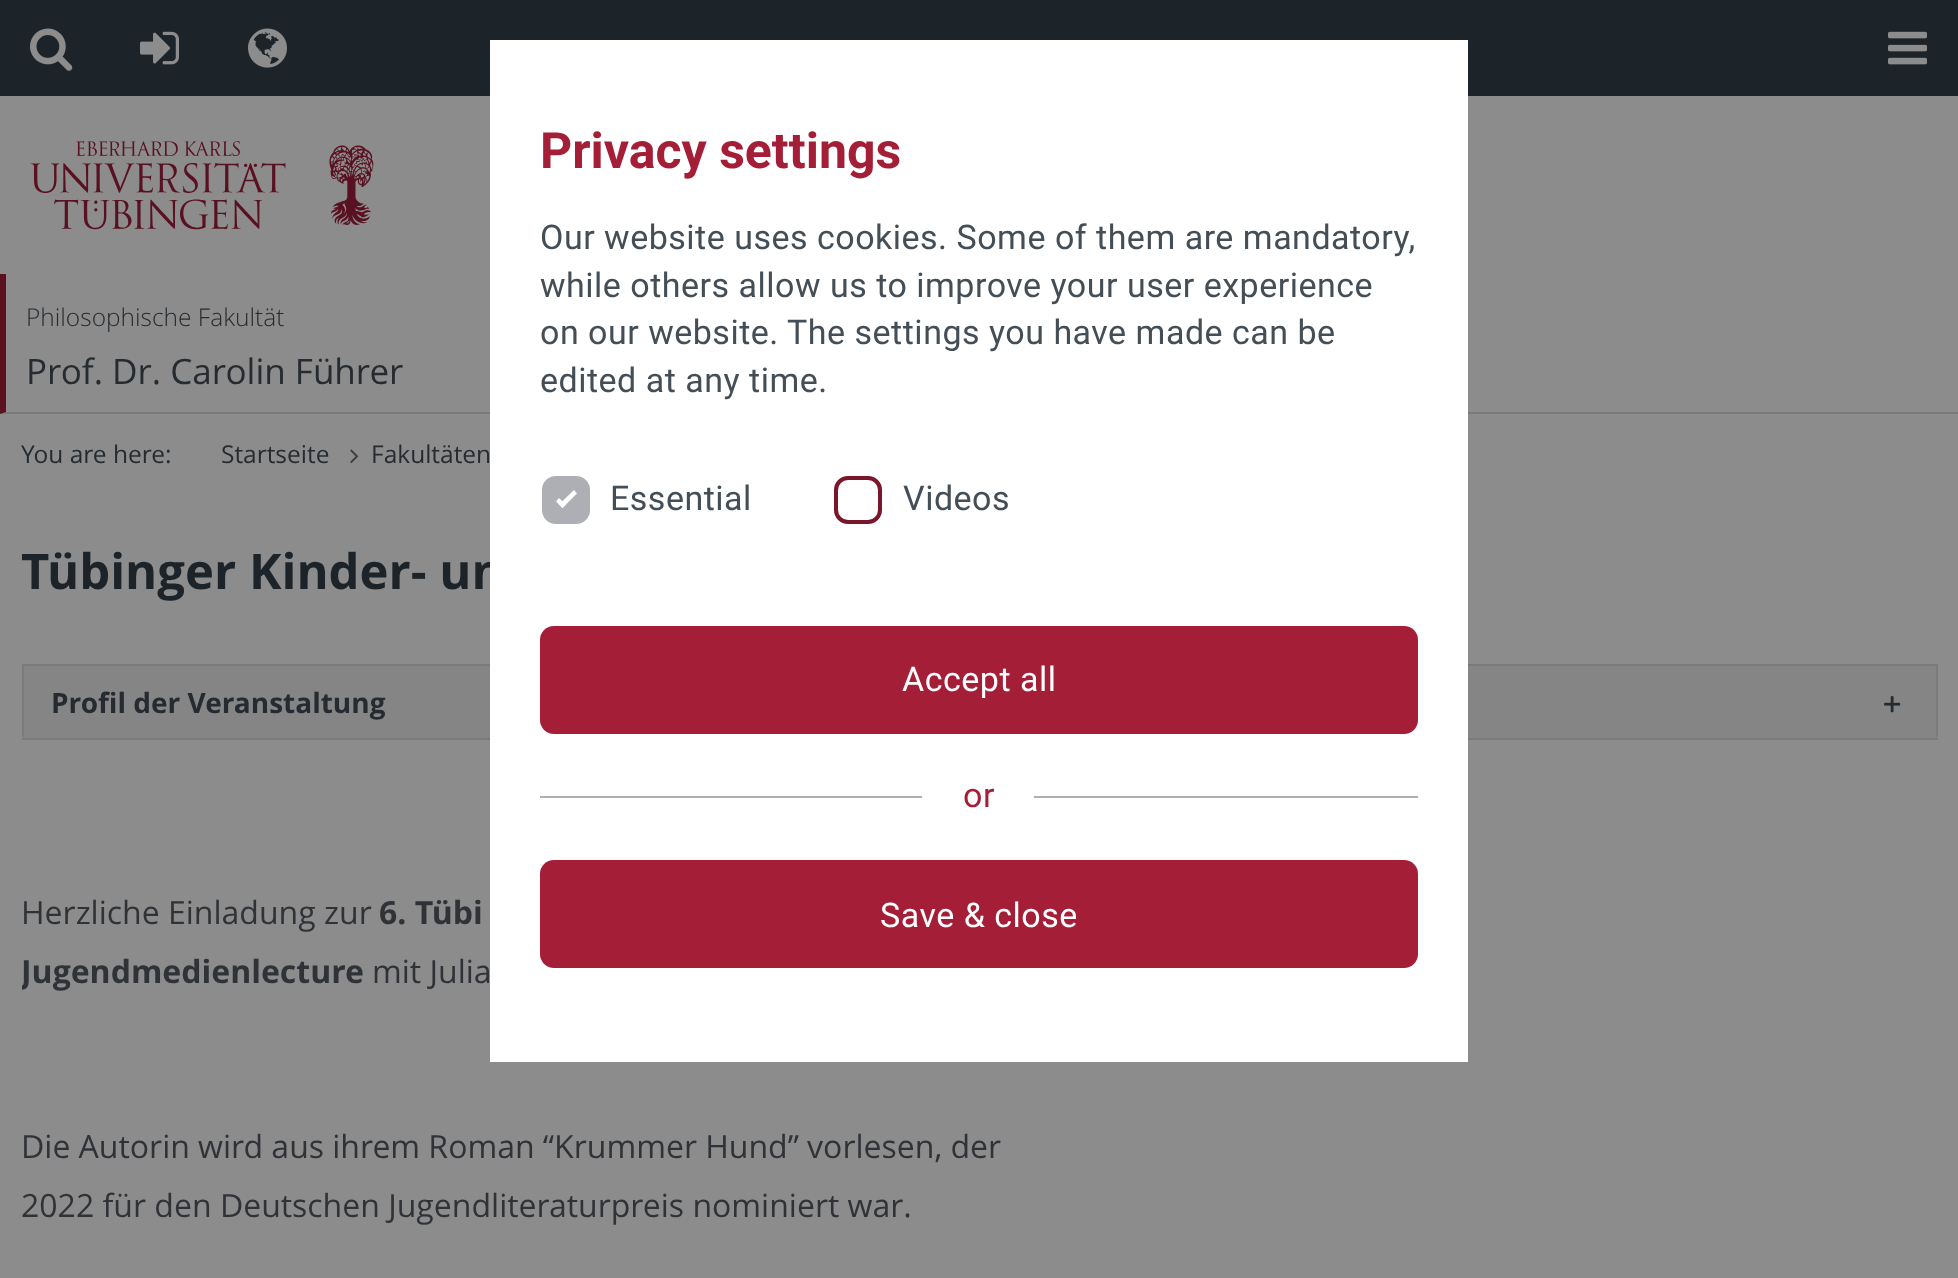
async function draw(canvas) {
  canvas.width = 1958;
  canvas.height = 1278;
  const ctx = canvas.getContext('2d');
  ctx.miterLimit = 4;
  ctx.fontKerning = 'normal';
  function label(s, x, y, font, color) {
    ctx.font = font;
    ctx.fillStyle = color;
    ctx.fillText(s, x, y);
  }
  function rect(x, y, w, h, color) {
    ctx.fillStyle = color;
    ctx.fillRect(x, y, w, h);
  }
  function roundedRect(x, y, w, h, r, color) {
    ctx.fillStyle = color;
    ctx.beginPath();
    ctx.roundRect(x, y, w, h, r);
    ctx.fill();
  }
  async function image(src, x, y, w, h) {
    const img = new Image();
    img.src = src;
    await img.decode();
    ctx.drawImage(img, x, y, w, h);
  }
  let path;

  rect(0, 0, 1958, 1278, '#8c8c8c');
  rect(0, 0, 1958, 96, '#1c2429');
  ctx.fillStyle = '#7a7a7a';
  path = new Path2D('M1958 414H0L6 412H1958Z');
  ctx.fill(path);
  label('Tübinger Kinder- un', 21, 589, 'bold 49px Open Sans', '#1c2429');
  rect(22, 738, 1916, 2, '#7a7a7a');
  rect(22, 666, 1916, 72, '#858585');
  rect(22, 664, 1916, 2, '#7a7a7a');
  rect(490, 40, 978, 1022, '#fff');
  label('Privacy settings', 540, 168, 'bold 50px Roboto', '#a51e37');
  ctx.letterSpacing = '0.5px';
  label('Our website uses cookies. Some of them are mandatory,', 540, 249, '34px Roboto', '#444e57');
  label('while others allow us to improve your user experience', 540, 297, '34px Roboto', '#444e57');
  label('on our website. The settings you have made can be', 540, 344, '34px Roboto', '#444e57');
  label('edited at any time.', 540, 392, '34px Roboto', '#444e57');
  ctx.fillStyle = '#adafb5';
  ctx.beginPath();
  ctx.roundRect(544, 478, 44, 44, 12);
  ctx.fill();
  ctx.strokeStyle = '#adafb5';
  ctx.lineWidth = 4;
  ctx.stroke();
  label('Essential', 610, 510, '34px Roboto', '#444e57');
  ctx.fillStyle = '#fff';
  path = new Path2D('M559 504.5L574 490L577 493.5L562.5 508Z');
  ctx.fill(path);
  path = new Path2D('M556 501.5L559 498L566 504.5L562.5 508Z');
  ctx.fill(path);
  ctx.beginPath();
  ctx.roundRect(836, 478, 44, 44, 12);
  ctx.strokeStyle = '#7a1629';
  ctx.stroke();
  label('Videos', 903, 510, '34px Roboto', '#444e57');
  roundedRect(540, 626, 878, 108, 14, '#a51e37');
  label('Accept all', 902, 691, '34px Roboto', '#fff');
  rect(540, 796, 382, 2, '#adafb5');
  label('or', 963, 807, '34px Roboto', '#a51e37');
  rect(1034, 796, 384, 2, '#adafb5');
  roundedRect(540, 860, 878, 108, 14, '#a51e37');
  label('Save & close', 880, 927, '34px Roboto', '#fff');
  await image('assets/img1.png', 30, 28, 43, 43);
  await image('assets/img2.png', 140, 31, 39, 34);
  await image('assets/img3.png', 248, 28, 39, 40);
  await image('assets/img4.png', 1888, 31, 39, 34);
  await image('assets/img5.png', 30, 141, 344, 89);
  ctx.fillStyle = '#5b111e';
  path = new Path2D('M0 414V274H6V412Z');
  ctx.fill(path);
  ctx.letterSpacing = '0px';
  label('Philosophische Fakultät', 26, 326, '300 24.5px Open Sans', '#252b30');
  label('Prof. Dr. Carolin Führer', 26, 384, '35px Open Sans', '#252b30');
  label('You are here:', 21, 463, '24.5px Open Sans', '#252b30');
  label('Startseite', 221, 463, '24.5px Open Sans', '#252b30');
  await image('assets/img6.png', 350, 449, 9, 15);
  label('Fakultäten', 371, 463, '24.5px Open Sans', '#252b30');
  ctx.fillStyle = '#7a7a7a';
  path = new Path2D('M1938 664V738L1936 736V666Z');
  ctx.fill(path);
  path = new Path2D('M22 738V664L24 666V736Z');
  ctx.fill(path);
  label('Profil der Veranstaltung', 51, 713, 'bold 28px Open Sans', '#252b30');
  await image('assets/img7.png', 1884, 696, 17, 17);
  label('Herzliche Einladung zur', 21, 924, '32px Open Sans', '#2f3338');
  label('6. Tübi', 379, 924, 'bold 32px Open Sans', '#2f3338');
  ctx.save();
  ctx.beginPath();
  ctx.rect(22, 536, 1916, 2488);
  ctx.clip();
  label('Jugendmedienlecture', 21, 983, 'bold 32px Open Sans', '#2f3338');
  ctx.restore();
  label('mit Julia', 372, 983, '32px Open Sans', '#2f3338');
  ctx.wordSpacing = '-0.1px';
  label('Die Autorin wird aus ihrem Roman “Krummer Hund” vorlesen, der', 21, 1158, '32px Open Sans', '#2f3338');
  ctx.wordSpacing = '0px';
  label('2022 für den Deutschen Jugendliteraturpreis nominiert war.', 21, 1217, '32px Open Sans', '#2f3338');
}

draw(document.querySelector('canvas'));
